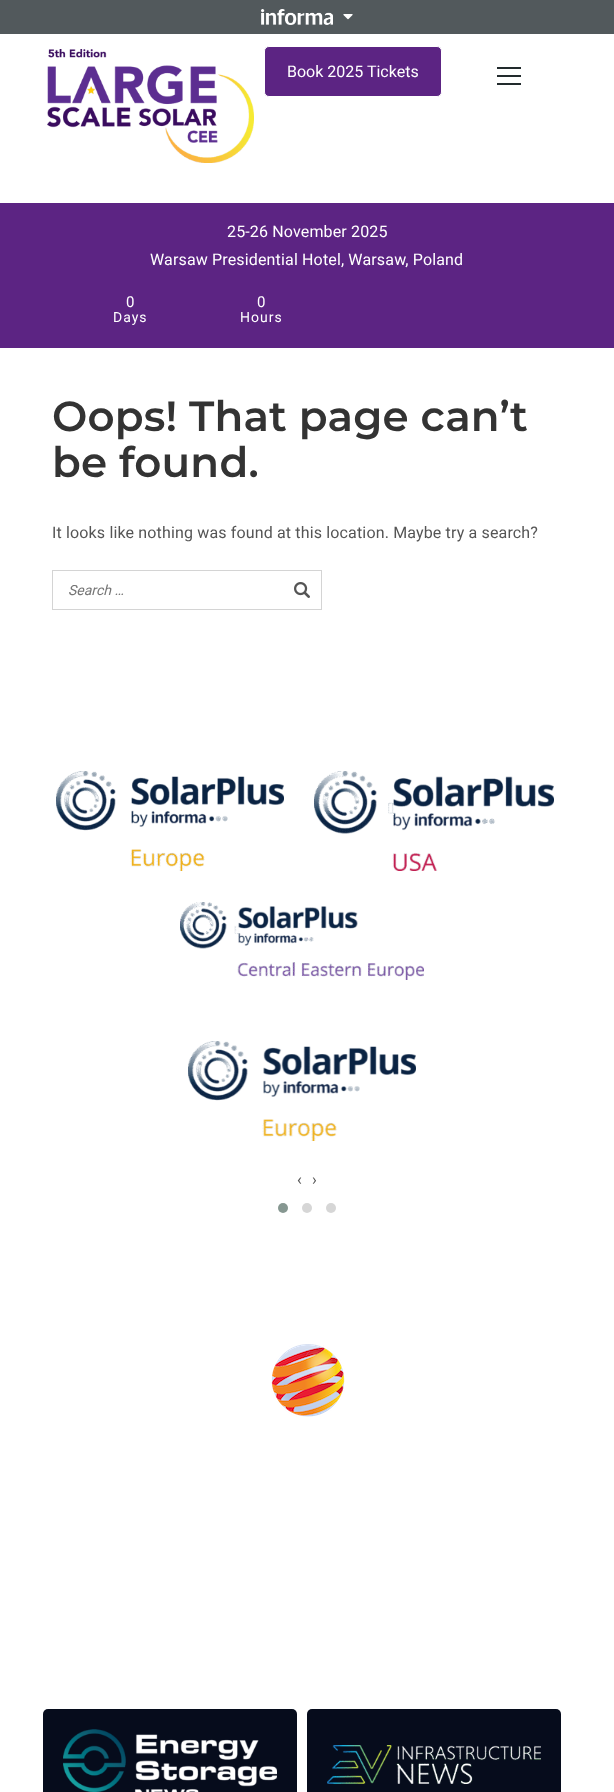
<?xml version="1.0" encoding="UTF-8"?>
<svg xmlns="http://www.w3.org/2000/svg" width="614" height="1792">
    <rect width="100%" height="100%" fill="#FFFFFF"/>
    <rect x="0" y="0" width="614" height="34" fill="#52595C"/>
    <image x="261" y="9" width="72" height="16" href="img_01.png"/>
    <image x="343" y="14" width="10" height="6" href="img_02.png"/>
    <image x="47" y="49" width="207" height="114" href="img_03.png"/>
    <rect x="264.5" y="46.5" width="177" height="50" rx="4.5" fill="#5C2483" stroke="#FFFFFF"/>
    <text x="287" y="77" font-family="Roboto" font-size="16" fill="#FFFFFF">Book 2025 Tickets</text>
    <rect x="497" y="67" width="24" height="2" fill="#222B2D"/>
    <rect x="497" y="75" width="24" height="2" fill="#222B2D"/>
    <rect x="497" y="83" width="24" height="2" fill="#222B2D"/>
    <rect x="0" y="203" width="614" height="145" fill="#5C2483"/>
    <text x="227" y="237" font-family="Roboto" font-size="16" letter-spacing="0.15" fill="#FFFFFF">25-26 November 2025</text>
    <text x="150" y="265" font-family="Roboto" font-size="16" letter-spacing="0.15" fill="#FFFFFF">Warsaw Presidential Hotel, Warsaw, Poland</text>
    <text x="126" y="307" font-family="Roboto" font-size="15" letter-spacing="0.15" fill="#FFFFFF">0</text>
    <text x="113" y="322" font-family="Roboto" font-size="14" letter-spacing="1" fill="#FFFFFF">Days</text>
    <text x="257" y="307" font-family="Roboto" font-size="15" letter-spacing="0.15" fill="#FFFFFF">0</text>
    <text x="240" y="322" font-family="Roboto" font-size="14" letter-spacing="1" fill="#FFFFFF">Hours</text>
    <text font-family="Montserrat" font-size="42" font-weight="600" letter-spacing="0.15" fill="#333333">
        <tspan x="52" y="431">Oops! That page can’t</tspan>
        <tspan x="52" y="477">be found.</tspan>
    </text>
    <text x="52" y="538" font-family="Roboto" font-size="16" letter-spacing="0.15" fill="#555555">It looks like nothing was found at this location. Maybe try a search?</text>
    <rect x="52.5" y="570.5" width="269" height="39" fill="none" stroke="#D4D4D4"/>
    <text x="68" y="595" font-family="Roboto" font-size="14" font-style="italic" fill="#757575">Search …</text>
    <image x="294" y="582" width="16" height="16" href="img_04.png"/>
    <image x="56" y="771" width="228" height="100" href="img_05.png"/>
    <image x="314" y="771" width="240" height="100" href="img_06.png"/>
    <image x="180" y="902" width="244" height="78" href="img_07.png"/>
    <image x="188" y="1041" width="228" height="100" href="img_08.png"/>
    <text x="297" y="1185" font-family="Roboto" font-size="16" fill="#555555">‹</text>
    <text x="312" y="1185" font-family="Roboto" font-size="16" fill="#555555">›</text>
    <circle cx="283" cy="1208" r="5" fill="#869791"/>
    <circle cx="307" cy="1208" r="5" fill="#D6D6D6"/>
    <circle cx="331" cy="1208" r="5" fill="#D6D6D6"/>
    <image x="271" y="1344" width="74" height="73" href="img_09.png"/>
    <rect x="43" y="1709" width="254" height="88" rx="5" fill="#060C1C"/>
    <image x="63" y="1729" width="214" height="63" href="img_10.png"/>
    <rect x="307" y="1709" width="254" height="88" rx="5" fill="#060C1C"/>
    <image x="327" y="1745" width="214" height="39" href="img_11.png"/>
</svg>
